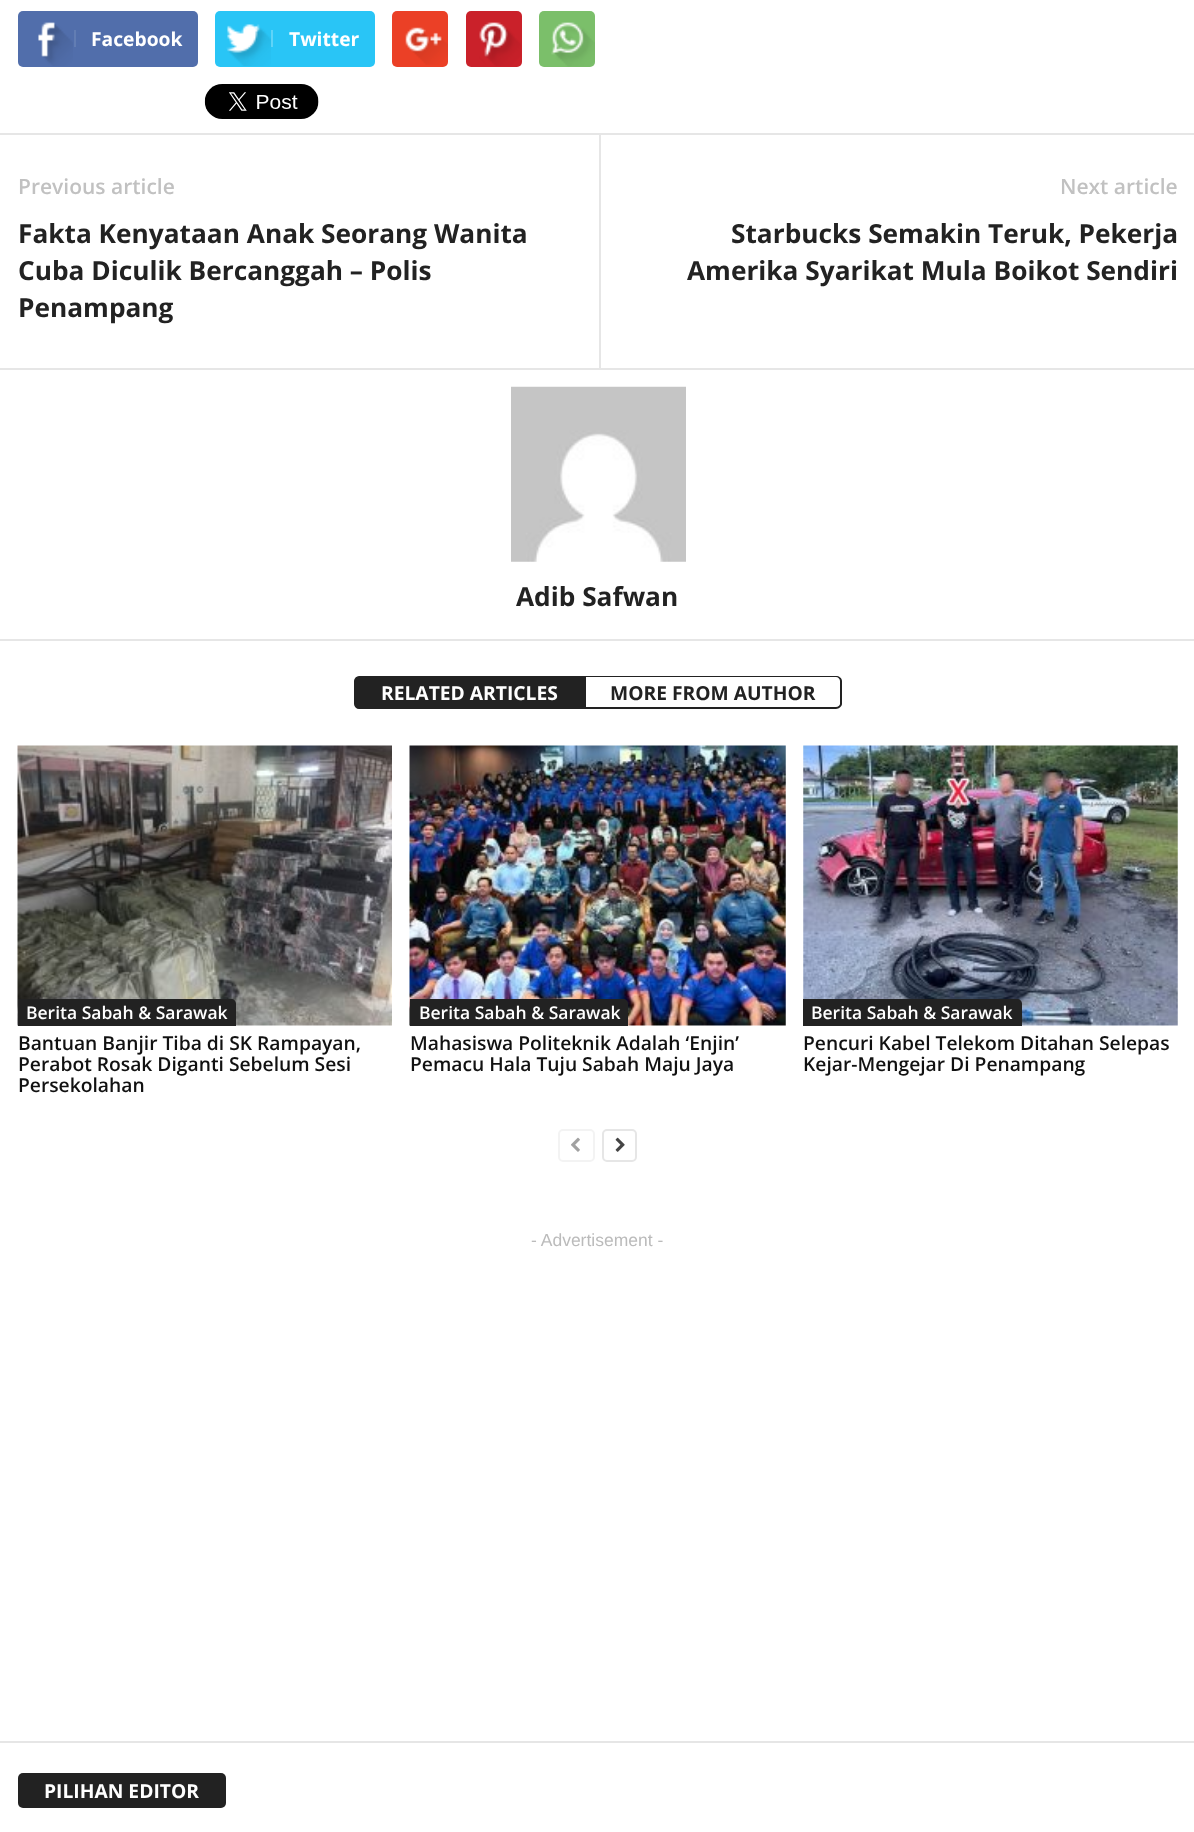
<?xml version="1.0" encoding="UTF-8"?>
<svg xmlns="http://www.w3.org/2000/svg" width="1194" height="1832">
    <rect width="100%" height="100%" fill="#FFFFFF"/>
    <rect x="18" y="11" width="180" height="56" rx="5" fill="#516EAB"/>
    <image x="38" y="22" width="35" height="44" href="img_01.png"/>
    <rect x="74" y="30" width="2" height="17" fill="#627DB3"/>
    <text x="91" y="46" font-family="Open Sans" font-size="19.25" font-weight="700" fill="#FFFFFF">Facebook</text>
    <rect x="215" y="11" width="160" height="56" rx="5" fill="#29C5F6"/>
    <image x="226" y="24" width="45" height="42" href="img_02.png"/>
    <rect x="271" y="30" width="2" height="17" fill="#5FD4F8"/>
    <text x="289" y="46" font-family="Open Sans" font-size="19.25" font-weight="700" fill="#FFFFFF">Twitter</text>
    <rect x="392" y="11" width="56" height="56" rx="5" fill="#EB4026"/>
    <image x="405" y="27" width="43" height="38" href="img_03.png"/>
    <rect x="466" y="11" width="56" height="56" rx="5" fill="#CA212A"/>
    <image x="479" y="22" width="42" height="44" href="img_04.png"/>
    <rect x="539" y="11" width="56" height="56" rx="5" fill="#7BBF6A"/>
    <image x="551" y="22" width="44" height="45" href="img_05.png"/>
    <image x="204" y="84" width="115" height="35" href="img_06.png"/>
    <rect x="0" y="133" width="1194" height="2" fill="#E6E6E6"/>
    <text x="18" y="194" font-family="Open Sans" font-size="21" font-weight="600" fill="#C1C1C1">Previous article</text>
    <text font-family="Open Sans" font-size="26.25" font-weight="700" fill="#222222">
        <tspan x="18" y="243">Fakta Kenyataan Anak Seorang Wanita</tspan>
        <tspan x="18" y="280">Cuba Diculik Bercanggah – Polis</tspan>
        <tspan x="18" y="317">Penampang</tspan>
    </text>
    <rect x="599" y="135" width="2" height="233" fill="#E6E6E6"/>
    <text x="1060" y="194" font-family="Open Sans" font-size="21" font-weight="600" fill="#C1C1C1">Next article</text>
    <text x="731" y="243" font-family="Open Sans" font-size="26.25" font-weight="700" fill="#222222">Starbucks Semakin Teruk, Pekerja</text>
    <text x="687" y="280" font-family="Open Sans" font-size="26.25" font-weight="700" fill="#222222">Amerika Syarikat Mula Boikot Sendiri</text>
    <rect x="0" y="368" width="1194" height="2" fill="#E6E6E6"/>
    <image x="511" y="386" width="175" height="176" href="img_07.png"/>
    <text x="516" y="606" font-family="Open Sans" font-size="26.25" font-weight="700" fill="#222222">Adib Safwan</text>
    <rect x="0" y="639" width="1194" height="2" fill="#E6E6E6"/>
    <path d="M 359 677 H 585 V 708 H 359 C 357 708 355 706 355 704 V 681 C 355 679 357 677 359 677 Z" fill="#222222" stroke="#222222" stroke-width="2"/>
    <text x="381" y="700" font-family="Open Sans" font-size="19.25" font-weight="700" fill="#FFFFFF">RELATED ARTICLES</text>
    <path d="M 586 676 H 836 C 839 676 842 678 842 681 V 704 C 842 706 839 709 836 709 H 586 Z M 586 677 H 836 C 838 677 840 679 840 681 V 704 C 840 705 838 707 836 707 H 586 Z" fill="#222222" fill-rule="evenodd"/>
    <text x="610" y="700" font-family="Open Sans" font-size="19.25" font-weight="700" fill="#222222">MORE FROM AUTHOR</text>
    <image x="17" y="745" width="375" height="281" href="img_08.png"/>
    <path d="M 18 999 H 231 C 234 999 236 1001 236 1004 V 1026 H 18 Z" fill="#222222"/>
    <text x="26" y="1019" font-family="Open Sans" font-size="17.5" font-weight="600" fill="#FFFFFF">Berita Sabah &amp; Sarawak</text>
    <text font-family="Open Sans" font-size="19.25" font-weight="600" fill="#111111">
        <tspan x="18" y="1050">Bantuan Banjir Tiba di SK Rampayan,</tspan>
        <tspan x="18" y="1071">Perabot Rosak Diganti Sebelum Sesi</tspan>
        <tspan x="18" y="1092">Persekolahan</tspan>
    </text>
    <image x="409" y="745" width="377" height="281" href="img_09.png"/>
    <path d="M 410 999 H 623 C 626 999 628 1001 628 1004 V 1026 H 410 Z" fill="#222222"/>
    <text x="419" y="1019" font-family="Open Sans" font-size="17.5" font-weight="600" fill="#FFFFFF">Berita Sabah &amp; Sarawak</text>
    <text font-family="Open Sans" font-size="19.25" font-weight="600" fill="#111111">
        <tspan x="410" y="1050">Mahasiswa Politeknik Adalah ‘Enjin’</tspan>
        <tspan x="410" y="1071">Pemacu Hala Tuju Sabah Maju Jaya</tspan>
    </text>
    <image x="803" y="745" width="375" height="281" href="img_10.png"/>
    <path d="M 803 999 H 1017 C 1020 999 1022 1001 1022 1004 V 1026 H 803 Z" fill="#222222"/>
    <text x="811" y="1019" font-family="Open Sans" font-size="17.5" font-weight="600" fill="#FFFFFF">Berita Sabah &amp; Sarawak</text>
    <text font-family="Open Sans" font-size="19.25" font-weight="600" fill="#111111">
        <tspan x="803" y="1050">Pencuri Kabel Telekom Ditahan Selepas</tspan>
        <tspan x="803" y="1071">Kejar-Mengejar Di Penampang</tspan>
    </text>
    <rect x="559" y="1130" width="35" height="31" rx="4" fill="none" stroke="#F3F3F3" stroke-width="2"/>
    <image x="571" y="1137" width="9" height="15" href="img_11.png"/>
    <rect x="603" y="1130" width="33" height="31" rx="4" fill="none" stroke="#E6E6E6" stroke-width="2"/>
    <image x="615" y="1137" width="10" height="15" href="img_12.png"/>
    <text x="531" y="1246" font-family="Liberation Sans" font-size="17.5" fill="#BBBBBB">- Advertisement -</text>
    <rect x="0" y="1741" width="1194" height="2" fill="#E6E6E6"/>
    <rect x="18" y="1773" width="208" height="35" rx="5" fill="#222222"/>
    <text x="44" y="1798" font-family="Open Sans" font-size="19.25" font-weight="700" fill="#FFFFFF">PILIHAN EDITOR</text>
</svg>
